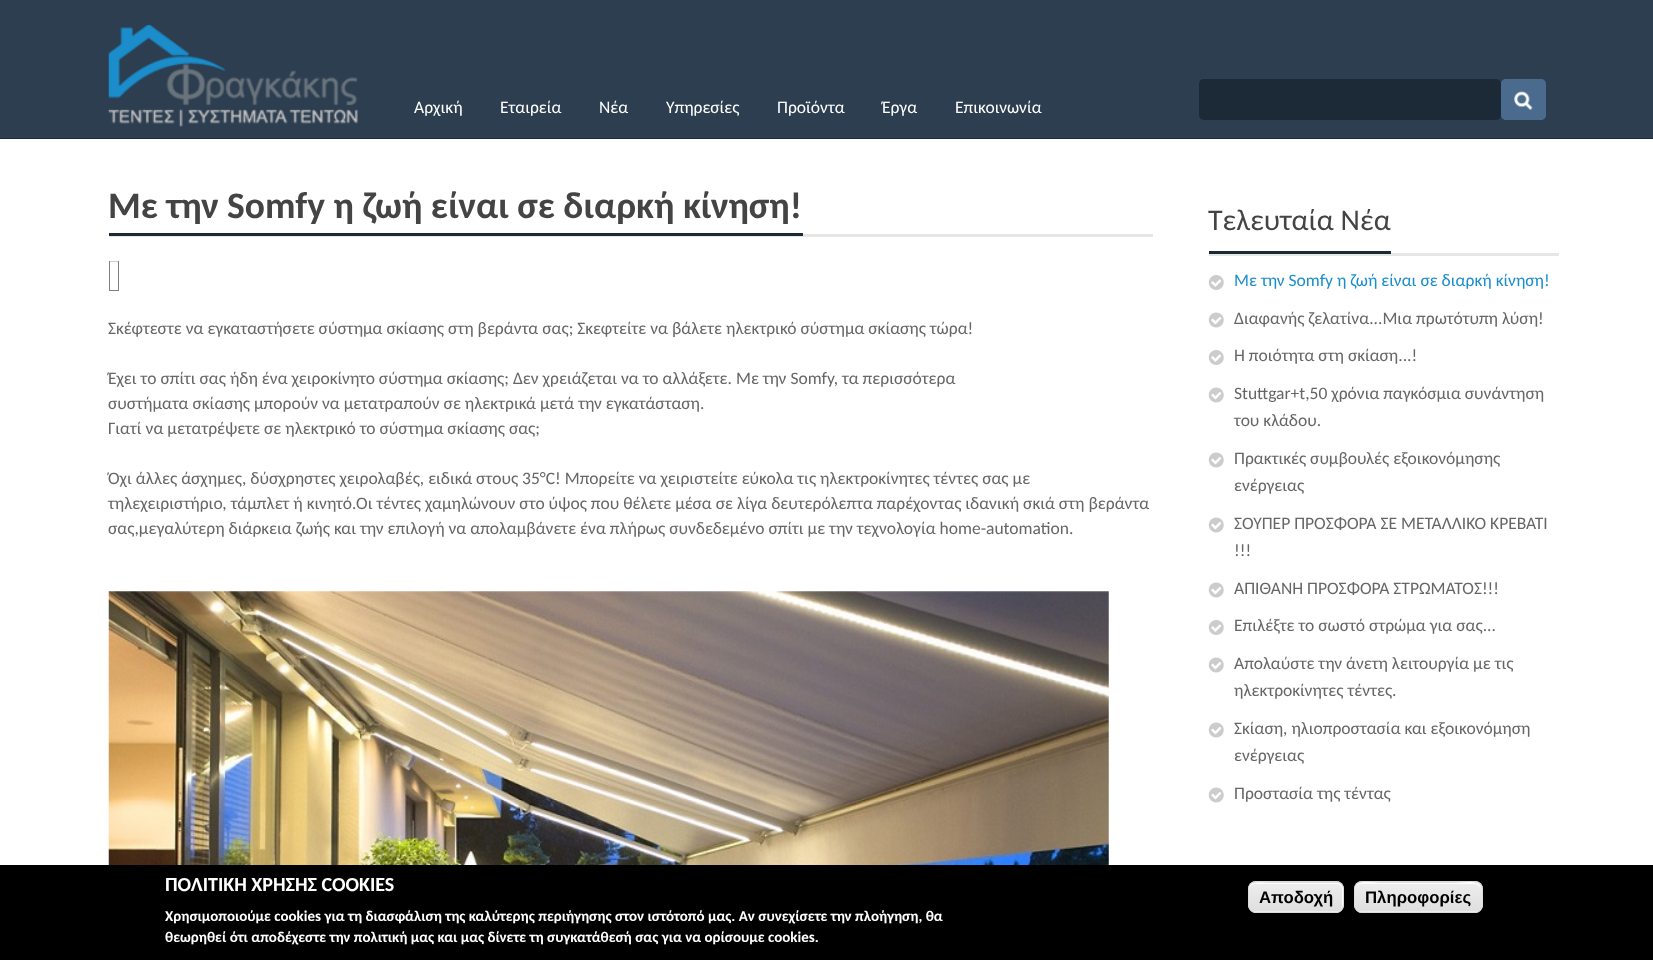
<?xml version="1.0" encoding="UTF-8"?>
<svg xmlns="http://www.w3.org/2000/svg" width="1653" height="960">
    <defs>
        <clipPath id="clip1"><rect x="1248" y="881" width="96" height="32" rx="8"/></clipPath>
        <linearGradient id="g1" gradientUnits="userSpaceOnUse" x1="1249" y1="854" x2="1249" y2="883"><stop offset="0.05" stop-color="#EDEDED"/><stop offset="1" stop-color="#DFDFDF"/></linearGradient>
        <linearGradient id="g2" gradientUnits="userSpaceOnUse" x1="1249" y1="883" x2="1249" y2="911"><stop offset="0.05" stop-color="#EDEDED"/><stop offset="1" stop-color="#DFDFDF"/></linearGradient>
        <linearGradient id="g3" gradientUnits="userSpaceOnUse" x1="1249" y1="911" x2="1249" y2="940"><stop offset="0.05" stop-color="#EDEDED"/><stop offset="1" stop-color="#DFDFDF"/></linearGradient>
        <clipPath id="clip2"><rect x="1354" y="881" width="129" height="32" rx="8"/></clipPath>
        <linearGradient id="g4" gradientUnits="userSpaceOnUse" x1="1355" y1="854" x2="1355" y2="883"><stop offset="0.05" stop-color="#EDEDED"/><stop offset="1" stop-color="#DFDFDF"/></linearGradient>
        <linearGradient id="g5" gradientUnits="userSpaceOnUse" x1="1355" y1="883" x2="1355" y2="911"><stop offset="0.05" stop-color="#EDEDED"/><stop offset="1" stop-color="#DFDFDF"/></linearGradient>
        <linearGradient id="g6" gradientUnits="userSpaceOnUse" x1="1355" y1="911" x2="1355" y2="940"><stop offset="0.05" stop-color="#EDEDED"/><stop offset="1" stop-color="#DFDFDF"/></linearGradient>
    </defs>
    <rect width="100%" height="100%" fill="#FFFFFF"/>
    <rect x="0" y="0" width="1653" height="138" fill="#2C3E50"/>
    <rect x="0" y="138" width="1653" height="1" fill="#1C2936"/>
    <image x="108" y="24" width="250" height="103" href="img_01.png"/>
    <text x="414" y="113" font-family="Carlito" font-size="17.5" fill="#FFFFFF">Αρχική</text>
    <text x="500" y="113" font-family="Carlito" font-size="17.5" fill="#FFFFFF">Εταιρεία</text>
    <text x="599" y="113" font-family="Carlito" font-size="17.5" fill="#FFFFFF">Νέα</text>
    <text x="666" y="113" font-family="Carlito" font-size="17.5" fill="#FFFFFF">Υπηρεσίες</text>
    <text x="777" y="113" font-family="Carlito" font-size="17.5" fill="#FFFFFF">Προϊόντα</text>
    <text x="882" y="113" font-family="Carlito" font-size="17.5" fill="#FFFFFF">Έργα</text>
    <text x="955" y="113" font-family="Carlito" font-size="17.5" fill="#FFFFFF">Επικοινωνία</text>
    <rect x="1199" y="79" width="302" height="41" rx="5" fill="#1C2936"/>
    <rect x="1501" y="79" width="45" height="41" rx="5" fill="#4A6B8E"/>
    <image x="1514" y="91" width="19" height="20" href="img_02.png"/>
    <rect x="1501.5" y="79.5" width="44" height="40" rx="4.5" fill="none" stroke="#4A6B8E"/>
    <rect x="109" y="234" width="1044" height="3" fill="#E6E6E6"/>
    <text x="108" y="218" font-family="Carlito" font-size="37.5" font-weight="700" fill="#444444">Με την Somfy η ζωή είναι σε διαρκή κίνηση!</text>
    <rect x="109" y="233" width="694" height="3" fill="#1C2936"/>
    <rect x="109" y="290" width="10" height="1" fill="#808080"/>
    <rect x="109" y="261" width="10" height="1" fill="#CCCCCC"/>
    <rect x="118" y="261" width="1" height="30" fill="#808080"/>
    <rect x="109" y="261" width="1" height="30" fill="#808080"/>
    <text x="108" y="334" font-family="Carlito" font-size="17.5" fill="#666666">Σκέφτεστε να εγκαταστήσετε σύστημα σκίασης στη βεράντα σας; Σκεφτείτε να βάλετε ηλεκτρικό σύστημα σκίασης τώρα!</text>
    <text font-family="Carlito" font-size="17.5" fill="#666666">
        <tspan x="108" y="384">Έχει το σπίτι σας ήδη ένα χειροκίνητο σύστημα σκίασης; Δεν χρειάζεται να το αλλάξετε. Με την Somfy, τα περισσότερα</tspan>
        <tspan x="108" y="409">συστήματα σκίασης μπορούν να μετατραπούν σε ηλεκτρικά μετά την εγκατάσταση.</tspan>
        <tspan x="108" y="434">Γιατί να μετατρέψετε σε ηλεκτρικό το σύστημα σκίασης σας;</tspan>
    </text>
    <text font-family="Carlito" font-size="17.5" fill="#666666">
        <tspan x="108" y="484">Όχι άλλες άσχημες, δύσχρηστες χειρολαβές, ειδικά στους 35°C! Μπορείτε να χειριστείτε εύκολα τις ηλεκτροκίνητες τέντες σας με</tspan>
        <tspan x="108" y="509">τηλεχειριστήριο, τάμπλετ ή κινητό.Οι τέντες χαμηλώνουν στο ύψος που θέλετε μέσα σε λίγα δευτερόλεπτα παρέχοντας ιδανική σκιά στη βεράντα</tspan>
        <tspan x="108" y="534">σας,μεγαλύτερη διάρκεια ζωής και την επιλογή να απολαμβάνετε ένα πλήρως συνδεδεμένο σπίτι με την τεχνολογία home-automation.</tspan>
    </text>
    <image x="108" y="591" width="1001" height="274" href="img_03.png"/>
    <rect x="1209" y="253" width="350" height="3" fill="#E6E6E6"/>
    <text x="1208" y="230" font-family="Carlito" font-size="30" fill="#444444">Τελευταία Νέα</text>
    <rect x="1209" y="251" width="182" height="3" fill="#1C2936"/>
    <image x="1208" y="275" width="16" height="15" href="img_04.png"/>
    <text x="1234" y="286" font-family="Carlito" font-size="17.5" fill="#1B8DCB">Με την Somfy η ζωή είναι σε διαρκή κίνηση!</text>
    <image x="1208" y="312" width="16" height="16" href="img_05.png"/>
    <text x="1234" y="324" font-family="Carlito" font-size="17.5" fill="#666666">Διαφανής ζελατίνα...Μια πρωτότυπη λύση!</text>
    <image x="1208" y="350" width="16" height="15" href="img_04.png"/>
    <text x="1234" y="361" font-family="Carlito" font-size="17.5" fill="#666666">Η ποιότητα στη σκίαση...!</text>
    <image x="1208" y="387" width="16" height="16" href="img_05.png"/>
    <text font-family="Carlito" font-size="17.5" fill="#666666">
        <tspan x="1234" y="399">Stuttgar+t,50 χρόνια παγκόσμια συνάντηση</tspan>
        <tspan x="1234" y="426">του κλάδου.</tspan>
    </text>
    <image x="1208" y="452" width="16" height="16" href="img_05.png"/>
    <text font-family="Carlito" font-size="17.5" fill="#666666">
        <tspan x="1234" y="464">Πρακτικές συμβουλές εξοικονόμησης</tspan>
        <tspan x="1234" y="491">ενέργειας</tspan>
    </text>
    <image x="1208" y="517" width="16" height="16" href="img_05.png"/>
    <text font-family="Carlito" font-size="17.5" fill="#666666">
        <tspan x="1234" y="529">ΣΟΥΠΕΡ ΠΡΟΣΦΟΡΑ ΣΕ ΜΕΤΑΛΛΙΚΟ ΚΡΕΒΑΤΙ</tspan>
        <tspan x="1234" y="556">!!!</tspan>
    </text>
    <image x="1208" y="582" width="16" height="16" href="img_05.png"/>
    <text x="1234" y="594" font-family="Carlito" font-size="17.5" fill="#666666">ΑΠΙΘΑΝΗ ΠΡΟΣΦΟΡΑ ΣΤΡΩΜΑΤΟΣ!!!</text>
    <image x="1208" y="620" width="16" height="15" href="img_04.png"/>
    <text x="1234" y="631" font-family="Carlito" font-size="17.5" fill="#666666">Επιλέξτε το σωστό στρώμα για σας...</text>
    <image x="1208" y="657" width="16" height="16" href="img_05.png"/>
    <text font-family="Carlito" font-size="17.5" fill="#666666">
        <tspan x="1234" y="669">Απολαύστε την άνετη λειτουργία με τις</tspan>
        <tspan x="1234" y="696">ηλεκτροκίνητες τέντες.</tspan>
    </text>
    <image x="1208" y="722" width="16" height="16" href="img_05.png"/>
    <text font-family="Carlito" font-size="17.5" fill="#666666">
        <tspan x="1234" y="734">Σκίαση, ηλιοπροστασία και εξοικονόμηση</tspan>
        <tspan x="1234" y="761">ενέργειας</tspan>
    </text>
    <image x="1208" y="787" width="16" height="16" href="img_05.png"/>
    <text x="1234" y="799" font-family="Carlito" font-size="17.5" fill="#666666">Προστασία της τέντας</text>
    <rect x="0" y="865" width="1653" height="95" fill="#000000"/>
    <text x="165" y="891" font-family="Carlito" font-size="20" font-weight="700" fill="#FFFFFF">ΠΟΛΙΤΙΚΗ ΧΡΗΣΗΣ COOKIES</text>
    <text font-family="Carlito" font-size="15" font-weight="700" fill="#FFFFFF">
        <tspan x="165" y="921">Χρησιμοποιούμε cookies για τη διασφάλιση της καλύτερης περιήγησης στον ιστότοπό μας. Αν συνεχίσετε την πλοήγηση, θα</tspan>
        <tspan x="165" y="942">θεωρηθεί ότι αποδέχεστε την πολιτική μας και μας δίνετε τη συγκατάθεσή σας για να ορίσουμε cookies.</tspan>
    </text>
    <g clip-path="url(#clip1)">
        <rect x="1248" y="881" width="96" height="2" fill="url(#g1)"/>
        <rect x="1248" y="883" width="96" height="28" fill="url(#g2)"/>
        <rect x="1248" y="911" width="96" height="2" fill="url(#g3)"/>
    </g>
    <path d="M 1255 884 H 1336 C 1340 884 1342 887 1342 890 V 906 L 1341 909 C 1344 906 1343 901 1343 897 C 1343 892 1344 883 1337 883 H 1269 C 1262 883 1249 880 1249 890 C 1249 887 1252 884 1255 884 Z" fill="#FFFFFF"/>
    <rect x="1248.5" y="881.5" width="95" height="31" rx="7.5" fill="none" stroke="#DCDCDC"/>
    <text x="1259" y="903" font-family="Liberation Sans" font-size="16.75" font-weight="700" fill="#000000">Αποδοχή</text>
    <g clip-path="url(#clip2)">
        <rect x="1354" y="881" width="129" height="2" fill="url(#g4)"/>
        <rect x="1354" y="883" width="129" height="28" fill="url(#g5)"/>
        <rect x="1354" y="911" width="129" height="2" fill="url(#g6)"/>
    </g>
    <path d="M 1361 884 H 1475 C 1478 884 1481 887 1481 890 C 1481 878 1462 883 1456 883 H 1380 C 1374 883 1355 878 1355 890 C 1355 887 1358 884 1361 884 Z" fill="#FFFFFF"/>
    <rect x="1354.5" y="881.5" width="128" height="31" rx="7.5" fill="none" stroke="#DCDCDC"/>
    <text x="1365" y="903" font-family="Liberation Sans" font-size="16.75" font-weight="700" fill="#000000">Πληροφορίες</text>
</svg>
